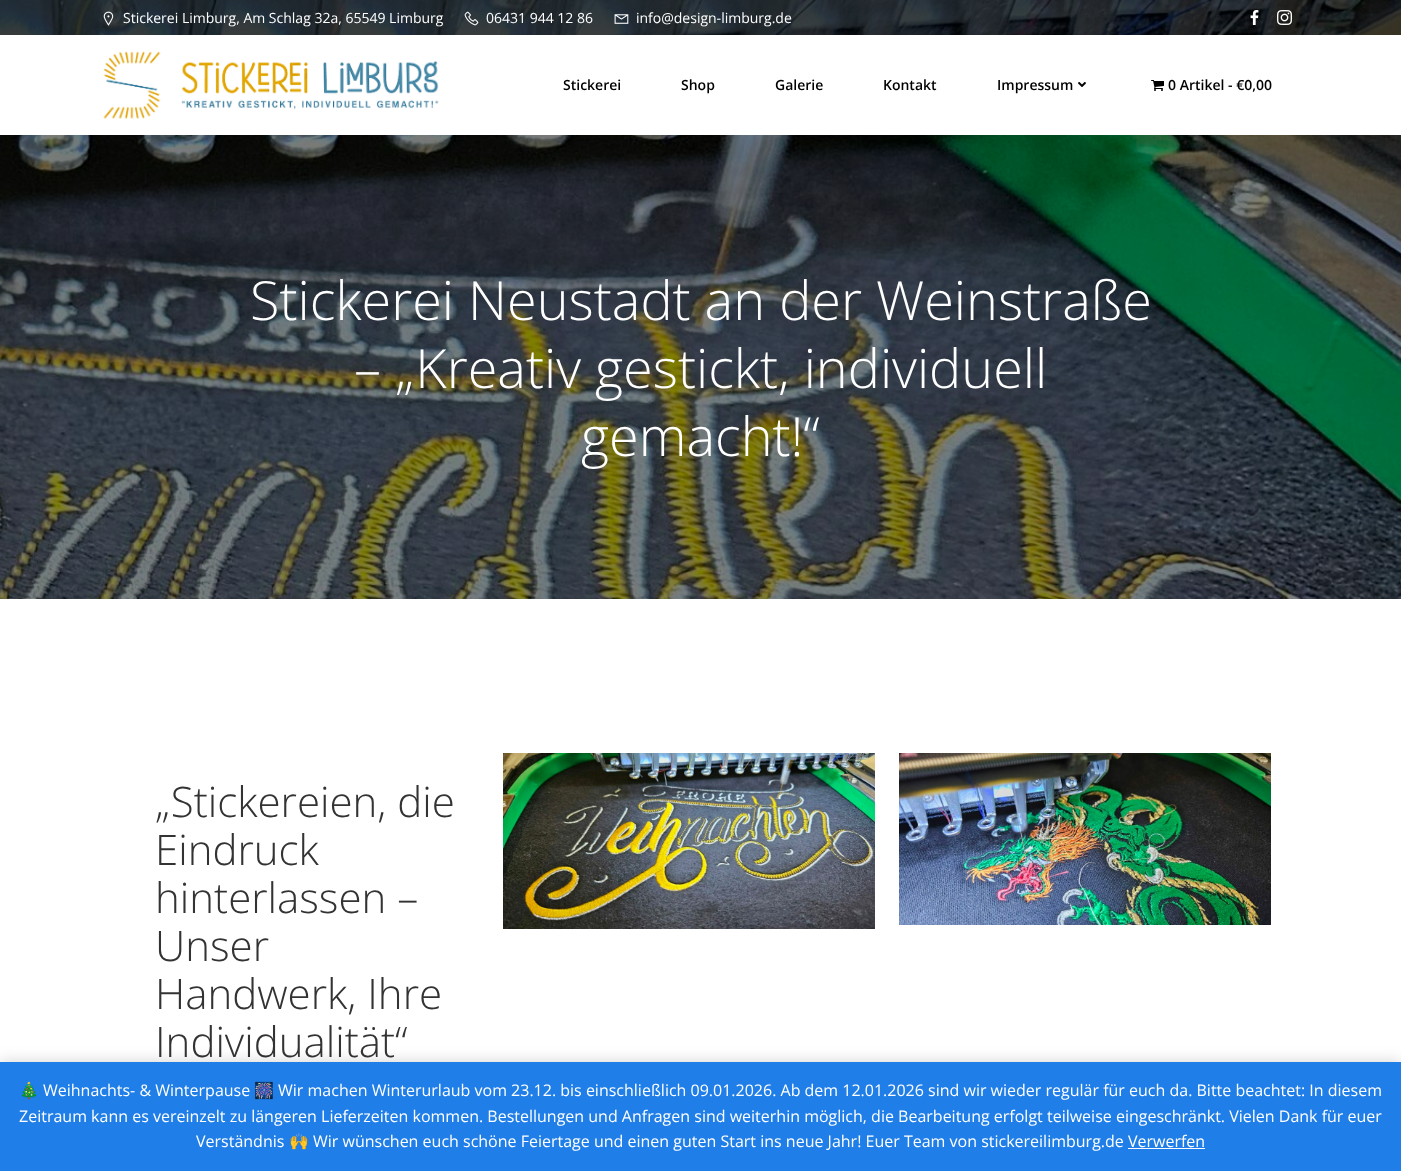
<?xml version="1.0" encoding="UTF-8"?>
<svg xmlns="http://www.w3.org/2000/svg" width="1401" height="1171">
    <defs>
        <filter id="blur1" x="-50%" y="-200%" width="200%" height="500%"><feGaussianBlur stdDeviation="8"/></filter>
    </defs>
    <rect width="100%" height="100%" fill="#FFFFFF"/>
    <image x="0" y="0" width="1401" height="599" href="img_09.png"/>
    <rect x="0" y="0" width="1401" height="35" fill="#000000" fill-opacity="0.5"/>
    <image x="103" y="11" width="11" height="15" href="img_01.png"/>
    <text x="123" y="23" font-family="Open Sans" font-size="14" fill="#FFFFFF">Stickerei Limburg, Am Schlag 32a, 65549 Limburg</text>
    <image x="464" y="11" width="15" height="15" href="img_02.png"/>
    <text x="486" y="23" font-family="Open Sans" font-size="14" fill="#FFFFFF">06431 944 12 86</text>
    <image x="614" y="14" width="15" height="10" href="img_03.png"/>
    <text x="636" y="23" font-family="Open Sans" font-size="14" fill="#FFFFFF">info@design-limburg.de</text>
    <image x="1250" y="10" width="9" height="15" href="img_04.png"/>
    <image x="1277" y="10" width="15" height="15" href="img_05.png"/>
    <rect x="0" y="35" width="1401" height="100" fill="#FFFFFF"/>
    <image x="103" y="51" width="336" height="68" href="img_06.png"/>
    <text x="563" y="90" font-family="Open Sans" font-size="14" font-weight="600" fill="#000000">Stickerei</text>
    <text x="681" y="90" font-family="Open Sans" font-size="14" font-weight="600" fill="#000000">Shop</text>
    <text x="775" y="90" font-family="Open Sans" font-size="14" font-weight="600" fill="#000000">Galerie</text>
    <text x="883" y="90" font-family="Open Sans" font-size="14" font-weight="600" fill="#000000">Kontakt</text>
    <text x="997" y="90" font-family="Open Sans" font-size="14" font-weight="600" fill="#000000">Impressum</text>
    <image x="1078" y="82" width="8" height="5" href="img_07.png"/>
    <image x="1151" y="80" width="13" height="11" href="img_08.png"/>
    <text x="1168" y="90" font-family="Open Sans" font-size="14" font-weight="600" fill="#000000">0 Artikel - €0,00</text>
    <text x="250" y="320" font-family="Open Sans" font-size="54" font-weight="300" fill="#FFFFFF">Stickerei Neustadt an der Weinstraße</text>
    <text x="354" y="388" font-family="Open Sans" font-size="54" font-weight="300" fill="#FFFFFF">– „Kreativ gestickt, individuell</text>
    <text x="581" y="456" font-family="Open Sans" font-size="54" font-weight="300" fill="#FFFFFF">gemacht!“</text>
    <text font-family="Open Sans" font-size="42" font-weight="300" fill="#333333">
        <tspan x="155" y="817">„Stickereien, die</tspan>
        <tspan x="155" y="865">Eindruck</tspan>
        <tspan x="155" y="913">hinterlassen –</tspan>
        <tspan x="155" y="961">Unser</tspan>
        <tspan x="155" y="1009">Handwerk, Ihre</tspan>
        <tspan x="155" y="1057">Individualität“</tspan>
    </text>
    <image x="503" y="753" width="372" height="176" href="img_10.png"/>
    <image x="899" y="753" width="372" height="172" href="img_11.png"/>
    <rect x="0" y="1063" width="1401" height="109" fill="#000000" fill-opacity="0.2" filter="url(#blur1)"/>
    <rect x="0" y="1062" width="1401" height="109" fill="#1F7EE7"/>
    <text x="19" y="1096" font-family="Noto Color Emoji" font-size="16" fill="#FFFFFF">🎄</text>
    <text x="43" y="1096" font-family="Open Sans" font-size="16" fill="#FFFFFF">Weihnachts- &amp; Winterpause</text>
    <text x="254" y="1096" font-family="Noto Color Emoji" font-size="16" fill="#FFFFFF">🎆</text>
    <text x="278" y="1096" font-family="Open Sans" font-size="16" fill="#FFFFFF">Wir machen Winterurlaub vom 23.12. bis einschließlich 09.01.2026. Ab dem 12.01.2026 sind wir wieder regulär für euch da. Bitte beachtet: In diesem</text>
    <text x="19" y="1122" font-family="Open Sans" font-size="16" fill="#FFFFFF">Zeitraum kann es vereinzelt zu längeren Lieferzeiten kommen. Bestellungen und Anfragen sind weiterhin möglich, die Bearbeitung erfolgt teilweise eingeschränkt. Vielen Dank für euer</text>
    <text x="196" y="1147" font-family="Open Sans" font-size="16" fill="#FFFFFF">Verständnis</text>
    <text x="289" y="1147" font-family="Noto Color Emoji" font-size="16" fill="#FFFFFF">🙌</text>
    <text x="313" y="1147" font-family="Open Sans" font-size="16" fill="#FFFFFF">Wir wünschen euch schöne Feiertage und einen guten Start ins neue Jahr! Euer Team von stickereilimburg.de Verwerfen</text>
    <rect x="1128" y="1148" width="77" height="1" fill="#FCFBFE"/>
</svg>
